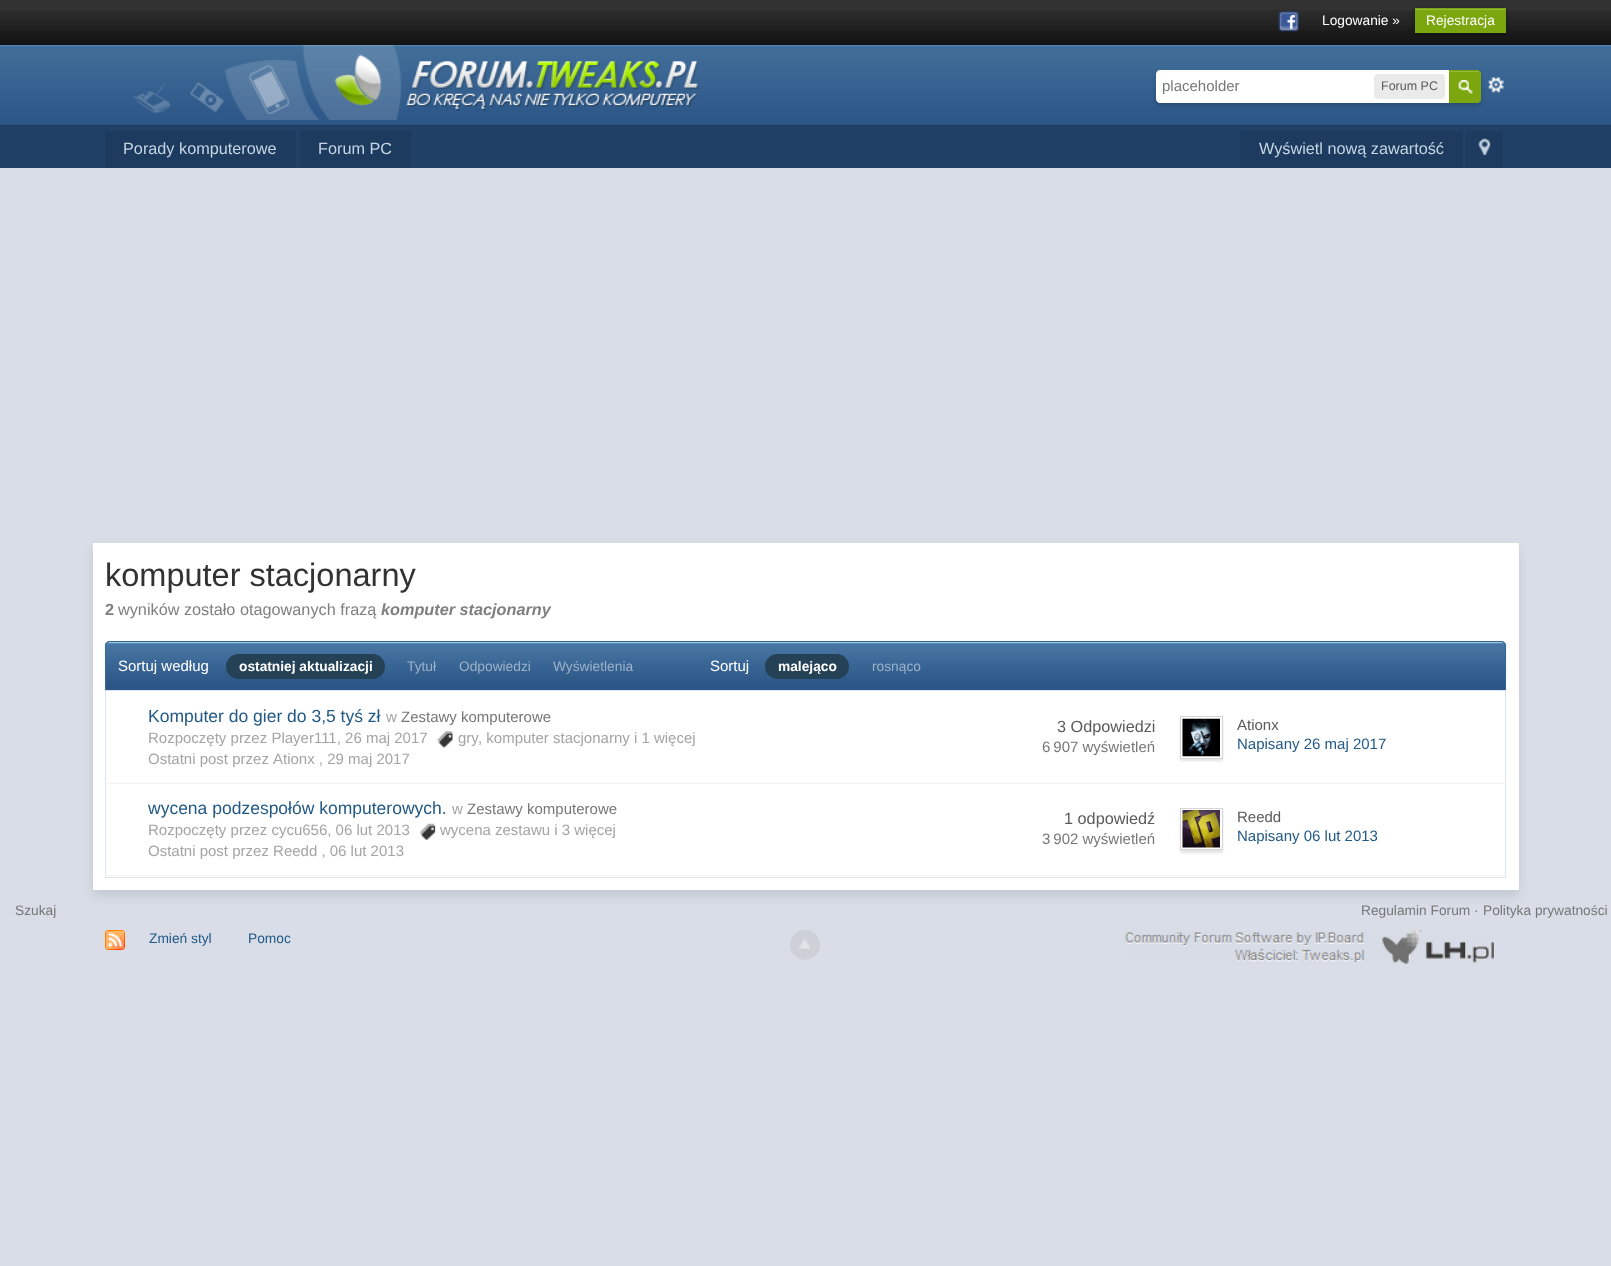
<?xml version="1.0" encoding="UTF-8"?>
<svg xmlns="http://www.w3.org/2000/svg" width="1611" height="1266">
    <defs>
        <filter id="blur1" x="-50%" y="-200%" width="200%" height="500%"><feGaussianBlur stdDeviation="2.5"/></filter>
        <filter id="blur2" x="-50%" y="-200%" width="200%" height="500%"><feGaussianBlur stdDeviation="5.5"/></filter>
        <filter id="blur3" x="-50%" y="-200%" width="200%" height="500%"><feGaussianBlur stdDeviation="1"/></filter>
    </defs>
    <rect width="100%" height="100%" fill="#D8DDE8"/>
    <rect x="0" y="0" width="1611" height="10" fill="#323232"/>
    <image x="0" y="10" width="1611" height="35" href="img_01.png"/>
    <image x="1278" y="11" width="21" height="21" href="img_02.png"/>
    <text x="1322" y="25" font-family="Liberation Sans" font-size="13.75" fill="#FFFFFF">Logowanie »</text>
    <rect x="1415" y="9" width="91" height="25" fill="#000000" fill-opacity="0.4" filter="url(#blur1)"/>
    <rect x="1415" y="8" width="91" height="25" fill="#7BA60D"/>
    <rect x="1416" y="9" width="89" height="1" fill="#95B83D"/>
    <text x="1426" y="25" font-family="Liberation Sans" font-size="13.75" fill="#FFFFFF">Rejestracja</text>
    <image x="0" y="45" width="1611" height="80" href="img_03.png"/>
    <rect x="0" y="125" width="1611" height="1" fill="#1B3759"/>
    <image x="133" y="45" width="566" height="75" href="img_04.png"/>
    <image x="1488" y="77" width="16" height="16" href="img_06.png"/>
    <rect x="1156" y="73" width="325" height="32" rx="5" fill="#000000" fill-opacity="0.2" filter="url(#blur1)"/>
    <path d="M 1160 70 H 1476 C 1479 70 1481 72 1481 75 V 98 C 1481 101 1479 103 1476 103 H 1160 C 1158 103 1156 101 1156 99 V 74 C 1156 72 1158 70 1160 70 Z" fill="#FFFFFF"/>
    <text x="1162" y="91" font-family="Liberation Sans" font-size="15" fill="#777777">placeholder</text>
    <rect x="1374" y="74" width="71" height="25" rx="4" fill="#EAEAEA"/>
    <text x="1381" y="90" font-family="Liberation Sans" font-size="12.5" fill="#5A5A5A">Forum PC</text>
    <path d="M 1449 70 H 1477 C 1479 70 1481 72 1481 74 V 99 C 1481 101 1479 103 1477 103 H 1449 Z" fill="#7BA60D"/>
    <image x="1458" y="80" width="15" height="14" href="img_05.png"/>
    <path d="M 1450 72 H 1478 C 1479 72 1480 74 1480 75 V 73.5 C 1480 72 1479 71 1477.5 71 H 1450 Z" fill="#95B83D"/>
    <path d="M 1449.5 70.5 H 1477 C 1479 70.5 1480.5 72 1480.5 74 V 99 C 1480.5 101 1479 102.5 1477 102.5 H 1449.5 Z" fill="none" stroke="#7BA60D"/>
    <rect x="0" y="126" width="1611" height="42" fill="#204066"/>
    <rect x="105" y="131" width="191" height="37" fill="#1C3B5F"/>
    <text x="123" y="154" font-family="Liberation Sans" font-size="16.25" fill="#C5D5E2">Porady komputerowe</text>
    <rect x="300" y="131" width="111" height="37" fill="#1C3B5F"/>
    <text x="318" y="154" font-family="Liberation Sans" font-size="16.25" fill="#C5D5E2">Forum PC</text>
    <rect x="1240" y="131" width="223" height="37" fill="#1C3B5F"/>
    <text x="1259" y="154" font-family="Liberation Sans" font-size="16.25" fill="#C5D5E2">Wyświetl nową zawartość</text>
    <rect x="1466" y="131" width="37" height="37" fill="#1C3B5F"/>
    <image x="1478" y="138" width="13" height="17" href="img_07.png"/>
    <rect x="93" y="549" width="1426" height="347" fill="#000000" fill-opacity="0.1" filter="url(#blur2)"/>
    <rect x="93" y="543" width="1426" height="347" fill="#FFFFFF"/>
    <text x="105" y="586" font-family="Liberation Sans" font-size="32.5" fill="#323232">komputer stacjonarny</text>
    <text x="105" y="615" font-family="Liberation Sans" font-size="16.25" font-weight="700" fill="#7F7F7F">2</text>
    <text x="118" y="615" font-family="Liberation Sans" font-size="16.25" fill="#7F7F7F">wyników zostało otagowanych frazą</text>
    <text x="381" y="615" font-family="Liberation Sans" font-size="16.25" font-weight="700" font-style="italic" fill="#7F7F7F">komputer stacjonarny</text>
    <path d="M 110 643 H 1501 C 1503 643 1505 645 1505 647 V 690 H 106 V 647 C 106 645 108 643 110 643 Z" fill="#2C5687"/>
    <image x="105" y="642" width="1402" height="45" href="img_08.png"/>
    <path d="M 110 644 H 1501 C 1503 644 1505 645 1505 648 V 647 C 1505 645 1503 643 1501 643 H 110 C 108 643 106 645 106 647 V 648 C 106 645 108 644 110 644 Z" fill="#528CBC"/>
    <path d="M 110 641 H 1501 C 1504 641 1506 643 1506 646 V 690 H 105 V 646 C 105 643 107 641 110 641 Z M 110 642 H 1501 C 1503 642 1505 644 1505 646 V 690 H 106 V 646 C 106 644 108 642 110 642 Z" fill="#316897" fill-rule="evenodd"/>
    <text x="118" y="671" font-family="Liberation Sans" font-size="15" fill="#FFFFFF">Sortuj według</text>
    <rect x="226" y="654" width="159" height="25" rx="12.5" fill="#244156"/>
    <text x="239" y="671" font-family="Liberation Sans" font-size="13.75" font-weight="700" fill="#FFFFFF">ostatniej aktualizacji</text>
    <text x="407" y="671" font-family="Liberation Sans" font-size="13.75" fill="#9CB2C9">Tytuł</text>
    <text x="459" y="671" font-family="Liberation Sans" font-size="13.75" fill="#9CB2C9">Odpowiedzi</text>
    <text x="553" y="671" font-family="Liberation Sans" font-size="13.75" fill="#9CB2C9">Wyświetlenia</text>
    <text x="710" y="671" font-family="Liberation Sans" font-size="15" fill="#FFFFFF">Sortuj</text>
    <rect x="765" y="654" width="84" height="25" rx="12.5" fill="#244156"/>
    <text x="778" y="671" font-family="Liberation Sans" font-size="13.75" font-weight="700" fill="#FFFFFF">malejąco</text>
    <text x="872" y="671" font-family="Liberation Sans" font-size="13.75" fill="#9CB2C9">rosnąco</text>
    <rect x="105.5" y="690.5" width="1400" height="187" fill="none" stroke="#DBE4EF"/>
    <text x="148" y="722" font-family="Liberation Sans" font-size="17.5" fill="#225985">Komputer do gier do 3,5 tyś zł</text>
    <text x="386" y="722" font-family="Liberation Sans" font-size="15" fill="#A4A4A4">w</text>
    <text x="401" y="722" font-family="Liberation Sans" font-size="15" fill="#777777">Zestawy komputerowe</text>
    <text x="148" y="743" font-family="Liberation Sans" font-size="15" fill="#A4A4A4">Rozpoczęty przez Player111, 26 maj 2017</text>
    <image x="437" y="731" width="16" height="17" href="img_09.png"/>
    <text x="458" y="743" font-family="Liberation Sans" font-size="15" fill="#A4A4A4">gry</text>
    <text x="478" y="743" font-family="Liberation Sans" font-size="15" fill="#A4A4A4">, komputer stacjonarny i 1 więcej</text>
    <text x="148" y="764" font-family="Liberation Sans" font-size="15" fill="#A4A4A4">Ostatni post przez</text>
    <text x="273" y="764" font-family="Liberation Sans" font-size="15" fill="#A4A4A4">Ationx , 29 maj 2017</text>
    <text x="1057" y="732" font-family="Liberation Sans" font-size="16.25" fill="#5A5A5A">3 Odpowiedzi</text>
    <text x="1042" y="752" font-family="Liberation Sans" font-size="15" fill="#777777">6 907 wyświetleń</text>
    <rect x="105" y="783" width="1401" height="1" fill="#F3F3F3"/>
    <rect x="1180" y="719" width="43" height="42" fill="#000000" fill-opacity="0.1" filter="url(#blur3)"/>
    <rect x="1181" y="718" width="41" height="40" fill="#FFFFFF"/>
    <rect x="1180.5" y="716.5" width="42" height="42" fill="none" stroke="#D5D5D5"/>
    <image x="1182" y="718" width="38" height="39" href="img_10.png"/>
    <text x="1237" y="730" font-family="Liberation Sans" font-size="15" fill="#5A5A5A">Ationx</text>
    <text x="1237" y="749" font-family="Liberation Sans" font-size="15" fill="#225985">Napisany 26 maj 2017</text>
    <text x="148" y="814" font-family="Liberation Sans" font-size="17.5" fill="#225985">wycena podzespołów komputerowych.</text>
    <text x="452" y="814" font-family="Liberation Sans" font-size="15" fill="#A4A4A4">w</text>
    <text x="467" y="814" font-family="Liberation Sans" font-size="15" fill="#777777">Zestawy komputerowe</text>
    <text x="148" y="835" font-family="Liberation Sans" font-size="15" fill="#A4A4A4">Rozpoczęty przez cycu656, 06 lut 2013</text>
    <image x="420" y="823" width="16" height="17" href="img_11.png"/>
    <text x="440" y="835" font-family="Liberation Sans" font-size="15" fill="#A4A4A4">wycena zestawu i 3 więcej</text>
    <text x="148" y="856" font-family="Liberation Sans" font-size="15" fill="#A4A4A4">Ostatni post przez Reedd , 06 lut 2013</text>
    <text x="1064" y="824" font-family="Liberation Sans" font-size="16.25" fill="#5A5A5A">1 odpowiedź</text>
    <text x="1042" y="844" font-family="Liberation Sans" font-size="15" fill="#777777">3 902 wyświetleń</text>
    <rect x="105" y="875" width="1401" height="1" fill="#F3F3F3"/>
    <rect x="1180" y="810" width="43" height="43" fill="#000000" fill-opacity="0.1" filter="url(#blur3)"/>
    <rect x="1180.5" y="808.5" width="42" height="41" fill="#FFFFFF" stroke="#D5D5D5"/>
    <image x="1182" y="810" width="38" height="38" href="img_12.png"/>
    <text x="1237" y="822" font-family="Liberation Sans" font-size="15" fill="#5A5A5A">Reedd</text>
    <text x="1237" y="841" font-family="Liberation Sans" font-size="15" fill="#225985">Napisany 06 lut 2013</text>
    <text x="15" y="915" font-family="Liberation Sans" font-size="13.75" fill="#777777">Szukaj</text>
    <text x="1361" y="915" font-family="Liberation Sans" font-size="13.75" fill="#777777">Regulamin Forum ·</text>
    <text x="1483" y="915" font-family="Liberation Sans" font-size="13.75" fill="#777777">Polityka prywatności</text>
    <image x="105" y="930" width="20" height="20" href="img_13.png"/>
    <text x="149" y="943" font-family="Liberation Sans" font-size="13.75" fill="#225985">Zmień styl</text>
    <text x="248" y="943" font-family="Liberation Sans" font-size="13.75" fill="#225985">Pomoc</text>
    <circle cx="805" cy="945" r="15" fill="#CDD0D7"/>
    <image x="799" y="939" width="12" height="10" href="img_14.png"/>
    <image x="1124" y="930" width="370" height="34" href="img_15.png"/>
</svg>
